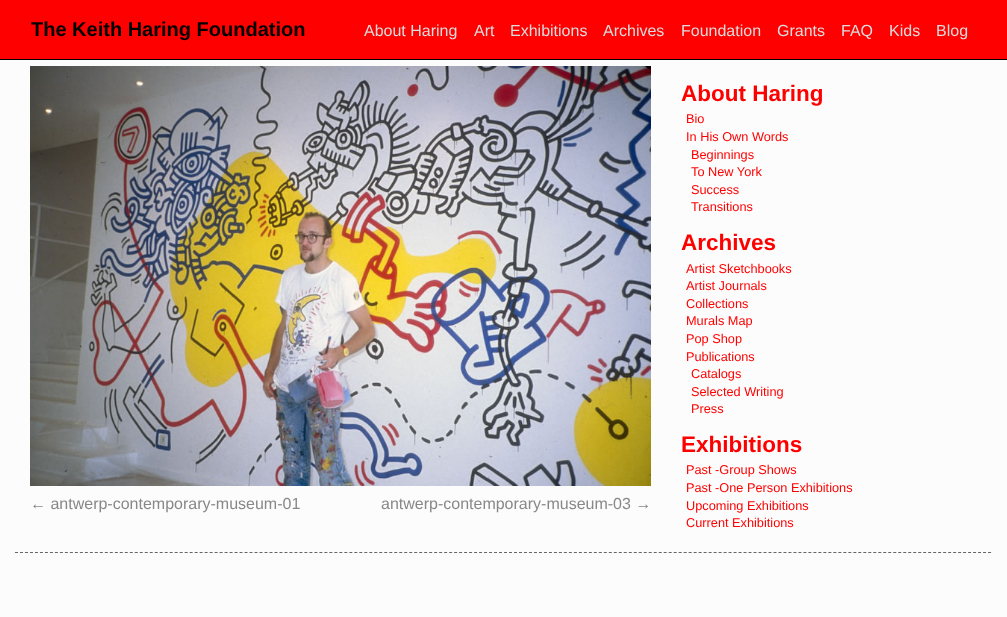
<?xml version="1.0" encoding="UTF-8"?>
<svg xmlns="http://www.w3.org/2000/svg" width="1007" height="617">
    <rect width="100%" height="100%" fill="#FCFCFC"/>
    <rect x="0" y="0" width="1007" height="59" fill="#FF0000"/>
    <rect x="0" y="59" width="1007" height="1" fill="#000000"/>
    <text x="31" y="36" font-family="Liberation Sans" font-size="20" font-weight="700" fill="#000000">The Keith Haring Foundation</text>
    <text x="364" y="36" font-family="Liberation Sans" font-size="16" fill="#DDDDDD">About Haring</text>
    <text x="474" y="36" font-family="Liberation Sans" font-size="16" fill="#DDDDDD">Art</text>
    <text x="510" y="36" font-family="Liberation Sans" font-size="16" fill="#DDDDDD">Exhibitions</text>
    <text x="603" y="36" font-family="Liberation Sans" font-size="16" fill="#DDDDDD">Archives</text>
    <text x="681" y="36" font-family="Liberation Sans" font-size="16" fill="#DDDDDD">Foundation</text>
    <text x="777" y="36" font-family="Liberation Sans" font-size="16" fill="#DDDDDD">Grants</text>
    <text x="841" y="36" font-family="Liberation Sans" font-size="16" fill="#DDDDDD">FAQ</text>
    <text x="889" y="36" font-family="Liberation Sans" font-size="16" fill="#DDDDDD">Kids</text>
    <text x="936" y="36" font-family="Liberation Sans" font-size="16" fill="#DDDDDD">Blog</text>
    <image x="30" y="66" width="621" height="420" href="img_01.png"/>
    <text x="30" y="509" font-family="Liberation Sans" font-size="16" fill="#888888">← antwerp-contemporary-museum-01</text>
    <text x="381" y="509" font-family="Liberation Sans" font-size="16" fill="#888888">antwerp-contemporary-museum-03 →</text>
    <text x="681" y="101" font-family="Liberation Sans" font-size="22.5" font-weight="700" fill="#FF0000">About Haring</text>
    <text font-family="Liberation Sans" font-size="12.75" fill="#FF0000">
        <tspan x="686" y="123">Bio</tspan>
        <tspan x="686" y="141">In His Own Words</tspan>
    </text>
    <text font-family="Liberation Sans" font-size="12.75" fill="#FF0000">
        <tspan x="691" y="159">Beginnings</tspan>
        <tspan x="691" y="176">To New York</tspan>
        <tspan x="691" y="194">Success</tspan>
        <tspan x="691" y="211">Transitions</tspan>
    </text>
    <text x="681" y="250" font-family="Liberation Sans" font-size="22.5" font-weight="700" fill="#FF0000">Archives</text>
    <text font-family="Liberation Sans" font-size="12.75" fill="#FF0000">
        <tspan x="686" y="273">Artist Sketchbooks</tspan>
        <tspan x="686" y="290">Artist Journals</tspan>
        <tspan x="686" y="308">Collections</tspan>
        <tspan x="686" y="325">Murals Map</tspan>
        <tspan x="686" y="343">Pop Shop</tspan>
        <tspan x="686" y="361">Publications</tspan>
    </text>
    <text font-family="Liberation Sans" font-size="12.75" fill="#FF0000">
        <tspan x="691" y="378">Catalogs</tspan>
        <tspan x="691" y="396">Selected Writing</tspan>
        <tspan x="691" y="413">Press</tspan>
    </text>
    <text x="681" y="452" font-family="Liberation Sans" font-size="22.5" font-weight="700" fill="#FF0000">Exhibitions</text>
    <text font-family="Liberation Sans" font-size="12.75" fill="#FF0000">
        <tspan x="686" y="474">Past -Group Shows</tspan>
        <tspan x="686" y="492">Past -One Person Exhibitions</tspan>
        <tspan x="686" y="510">Upcoming Exhibitions</tspan>
        <tspan x="686" y="527">Current Exhibitions</tspan>
    </text>
    <path d="M 15 552.5 H 992" fill="none" stroke="#666666" stroke-dasharray="3 1.99"/>
</svg>
